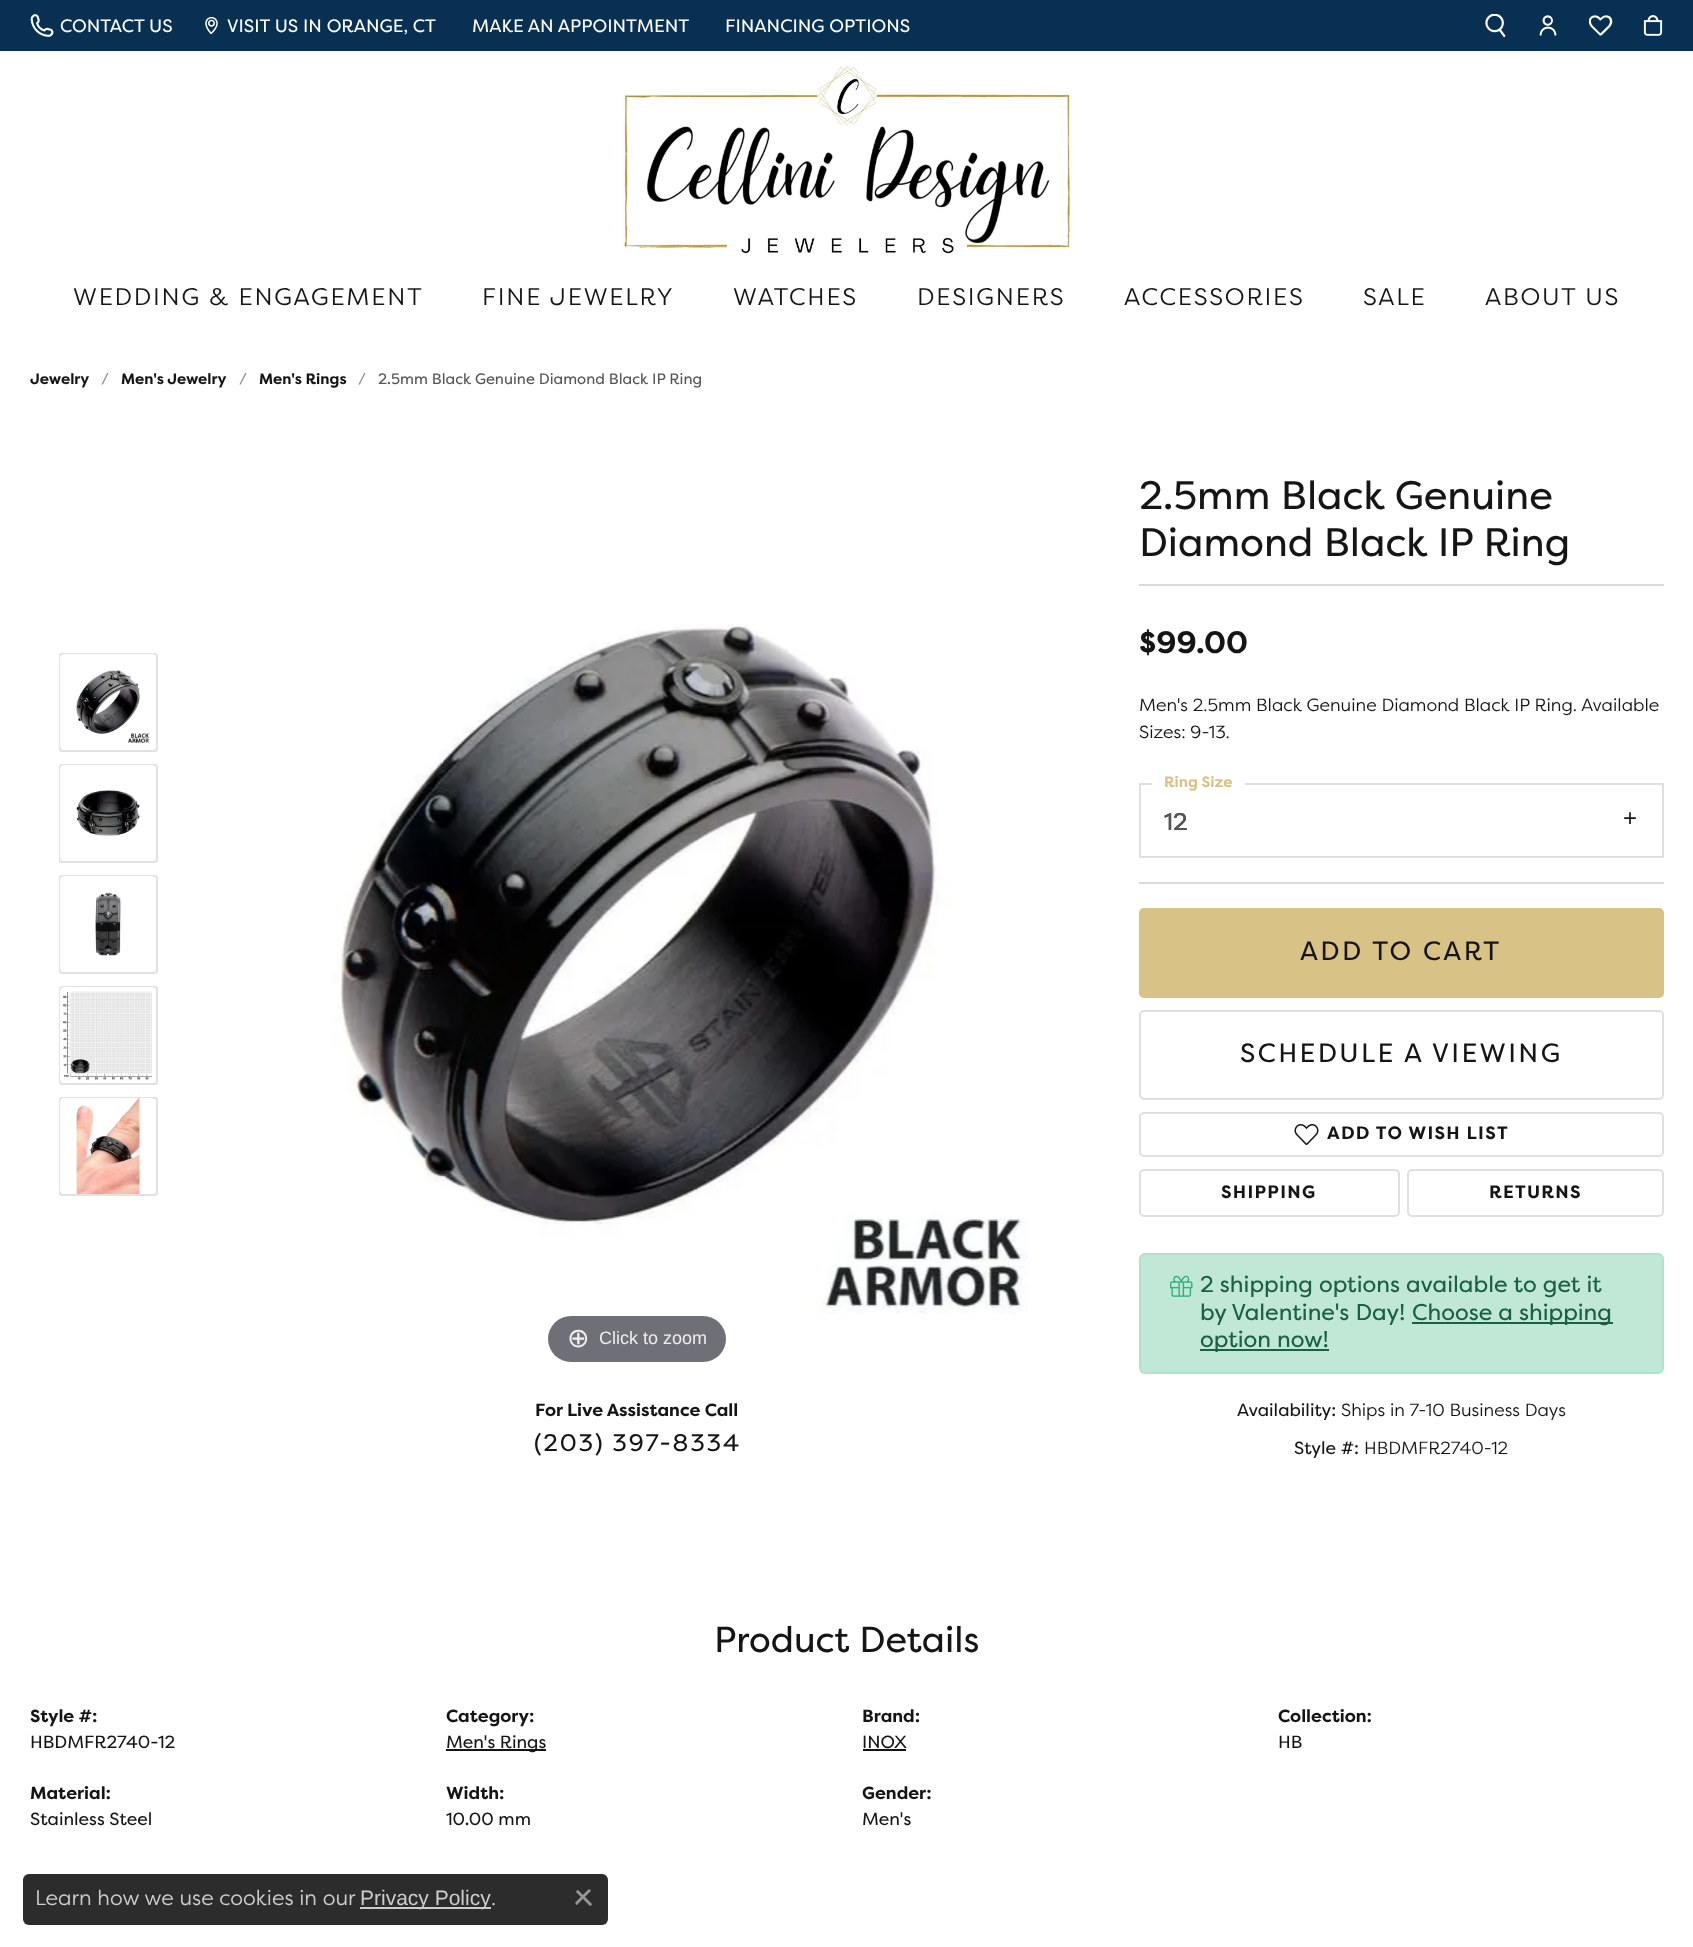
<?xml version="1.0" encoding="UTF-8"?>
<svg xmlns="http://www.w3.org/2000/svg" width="1693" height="1947">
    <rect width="100%" height="100%" fill="#083052"/>
    <image x="30" y="14" width="24" height="23" href="img_01.png"/>
    <text x="60" y="32" font-family="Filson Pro" font-size="18" fill="#FFFFFF">CONTACT US</text>
    <image x="205" y="17" width="13" height="18" href="img_02.png"/>
    <text x="227" y="32" font-family="Filson Pro" font-size="18" fill="#FFFFFF">VISIT US IN ORANGE, CT</text>
    <text x="472" y="32" font-family="Filson Pro" font-size="18" fill="#FFFFFF">MAKE AN APPOINTMENT</text>
    <text x="725" y="32" font-family="Filson Pro" font-size="18" fill="#FFFFFF">FINANCING OPTIONS</text>
    <image x="1485" y="14" width="21" height="24" href="img_03.png"/>
    <image x="1539" y="15" width="18" height="21" href="img_04.png"/>
    <image x="1589" y="15" width="24" height="21" href="img_05.png"/>
    <image x="1643" y="15" width="20" height="21" href="img_06.png"/>
    <rect x="0" y="51" width="1693" height="1896" fill="#FFFFFF"/>
    <image x="622" y="66" width="450" height="188" href="img_07.png"/>
    <text x="73" y="305" font-family="'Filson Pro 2'" font-size="24" letter-spacing="1.8" fill="#151515">WEDDING &amp; ENGAGEMENT</text>
    <text x="482" y="305" font-family="'Filson Pro 2'" font-size="24" letter-spacing="1.8" fill="#151515">FINE JEWELRY</text>
    <text x="733" y="305" font-family="'Filson Pro 2'" font-size="24" letter-spacing="1.8" fill="#151515">WATCHES</text>
    <text x="917" y="305" font-family="'Filson Pro 2'" font-size="24" letter-spacing="1.8" fill="#151515">DESIGNERS</text>
    <text x="1124" y="305" font-family="'Filson Pro 2'" font-size="24" letter-spacing="1.8" fill="#151515">ACCESSORIES</text>
    <text x="1363" y="305" font-family="'Filson Pro 2'" font-size="24" letter-spacing="1.8" fill="#151515">SALE</text>
    <text x="1485" y="305" font-family="'Filson Pro 2'" font-size="24" letter-spacing="1.8" fill="#151515">ABOUT US</text>
    <text x="30" y="384" font-family="Filson Pro" font-size="15" font-weight="700" fill="#151515">Jewelry</text>
    <text x="101" y="384" font-family="Filson Pro" font-size="15" fill="#949290">/</text>
    <text x="121" y="384" font-family="Filson Pro" font-size="15" font-weight="700" fill="#151515">Men's Jewelry</text>
    <text x="239" y="384" font-family="Filson Pro" font-size="15" fill="#949290">/</text>
    <text x="259" y="384" font-family="Filson Pro" font-size="15" font-weight="700" fill="#151515">Men's Rings</text>
    <text x="358" y="384" font-family="Filson Pro" font-size="15" fill="#949290">/</text>
    <text x="378" y="384" font-family="Filson Pro" font-size="15" fill="#555555">2.5mm Black Genuine Diamond Black IP Ring</text>
    <rect x="59" y="653" width="99" height="99" rx="3" fill="#F3F3F3"/>
    <rect x="60" y="654" width="97" height="97" rx="2" fill="none" stroke="#151515" stroke-opacity="0.07" stroke-width="2"/>
    <image x="60" y="654" width="96" height="96" href="img_08.png"/>
    <rect x="59" y="764" width="99" height="99" rx="3" fill="#F3F3F3"/>
    <rect x="60" y="765" width="97" height="97" rx="2" fill="none" stroke="#151515" stroke-opacity="0.07" stroke-width="2"/>
    <image x="60" y="765" width="96" height="96" href="img_09.png"/>
    <rect x="59" y="875" width="99" height="99" rx="3" fill="#F3F3F3"/>
    <rect x="60" y="876" width="97" height="97" rx="2" fill="none" stroke="#151515" stroke-opacity="0.07" stroke-width="2"/>
    <image x="60" y="876" width="96" height="96" href="img_10.png"/>
    <rect x="59" y="986" width="99" height="99" rx="3" fill="#F3F3F3"/>
    <rect x="60" y="987" width="97" height="97" rx="2" fill="none" stroke="#151515" stroke-opacity="0.07" stroke-width="2"/>
    <image x="60" y="987" width="96" height="96" href="img_11.png"/>
    <rect x="59" y="1097" width="99" height="99" rx="3" fill="#F3F3F3"/>
    <rect x="60" y="1098" width="97" height="97" rx="2" fill="none" stroke="#151515" stroke-opacity="0.07" stroke-width="2"/>
    <image x="60" y="1098" width="96" height="96" href="img_12.png"/>
    <image x="331" y="624" width="697" height="690" href="img_13.png"/>
    <rect x="548" y="1316" width="178" height="46" rx="23" fill="#6F7077"/>
    <text x="567" y="1347" font-family="DejaVu Sans" font-size="27" fill="#EEEEEE">⊕</text>
    <text x="599" y="1344" font-family="Liberation Sans" font-size="18" fill="#EEEEEE">Click to zoom</text>
    <text x="535" y="1416" font-family="Filson Pro" font-size="17.65" font-weight="700" fill="#151515">For Live Assistance Call</text>
    <text x="534" y="1451" font-family="Filson Pro" font-size="24" letter-spacing="1.8" fill="#151515">(203) 397-8334</text>
    <text font-family="Filson Pro" font-size="39.6" fill="#151515">
        <tspan x="1139" y="509">2.5mm Black Genuine</tspan>
        <tspan x="1139" y="556">Diamond Black IP Ring</tspan>
    </text>
    <rect x="1139" y="584" width="525" height="2" fill="#DBDADA"/>
    <text x="1139" y="653" font-family="Filson Pro" font-size="31" font-weight="700" fill="#151515">$99.00</text>
    <text font-family="'Filson Pro 2'" font-size="17.65" fill="#151515">
        <tspan x="1139" y="711">Men's 2.5mm Black Genuine Diamond Black IP Ring. Available</tspan>
        <tspan x="1139" y="738">Sizes: 9-13.</tspan>
    </text>
    <rect x="1140" y="784" width="523" height="73" fill="none" stroke="#DFDFDE" stroke-width="2"/>
    <rect x="1152" y="783" width="93" height="2" fill="#FFFFFF"/>
    <text x="1164" y="787" font-family="Filson Pro" font-size="15" font-weight="700" fill="#D8C285">Ring Size</text>
    <text x="1164" y="830" font-family="Filson Pro" font-size="24" fill="#151515">12</text>
    <text x="1623" y="826" font-family="Liberation Sans" font-size="24" fill="#151515">+</text>
    <text x="1164" y="830" font-family="Filson Pro" font-size="24" fill="#555555">12</text>
    <rect x="1139" y="882" width="525" height="2" fill="#DBDADA"/>
    <rect x="1140" y="909" width="523" height="88" rx="4" fill="#D8C285" stroke="#D8C285" stroke-width="2"/>
    <text x="1300" y="960" font-family="Filson Pro" font-size="26.4" letter-spacing="2.4" fill="#151515">ADD TO CART</text>
    <rect x="1140" y="1011" width="523" height="88" rx="4" fill="none" stroke="#DFDFDE" stroke-width="2"/>
    <text x="1240" y="1062" font-family="Filson Pro" font-size="26.4" letter-spacing="2.4" fill="#151515">SCHEDULE A VIEWING</text>
    <rect x="1140" y="1113" width="523" height="43" rx="4" fill="none" stroke="#DFDFDE" stroke-width="2"/>
    <image x="1294" y="1124" width="25" height="21" href="img_14.png"/>
    <text x="1327" y="1139" font-family="Filson Pro" font-size="18" font-weight="700" letter-spacing="1.25" fill="#151515">ADD TO WISH LIST</text>
    <rect x="1140" y="1170" width="259" height="46" rx="4" fill="none" stroke="#DFDFDE" stroke-width="2"/>
    <text x="1221" y="1198" font-family="Filson Pro" font-size="18" font-weight="700" letter-spacing="1.25" fill="#151515">SHIPPING</text>
    <rect x="1408" y="1170" width="255" height="46" rx="4" fill="none" stroke="#DFDFDE" stroke-width="2"/>
    <text x="1489" y="1198" font-family="Filson Pro" font-size="18" font-weight="700" letter-spacing="1.25" fill="#151515">RETURNS</text>
    <rect x="1139" y="1253" width="525" height="121" rx="6" fill="#C1E8D7"/>
    <rect x="1140" y="1254" width="523" height="119" rx="5" fill="none" stroke="#30B178" stroke-opacity="0.1" stroke-width="2"/>
    <image x="1170" y="1275" width="23" height="22" href="img_15.png"/>
    <text font-family="Filson Pro" font-size="22.75" fill="#1A6142">
        <tspan x="1200" y="1292">2 shipping options available to get it</tspan>
        <tspan x="1200" y="1320">by Valentine's Day!</tspan>
    </text>
    <rect x="1412" y="1322" width="201" height="2" fill="#1A6142"/>
    <text x="1412" y="1320" font-family="Filson Pro" font-size="22.75" fill="#1A6142">Choose a shipping</text>
    <rect x="1200" y="1349" width="129" height="2" fill="#1A6142"/>
    <text x="1200" y="1347" font-family="Filson Pro" font-size="22.75" fill="#1A6142">option now!</text>
    <text x="1237" y="1416" font-family="Filson Pro" font-size="17.65" fill="#151515">Availability:</text>
    <text x="1341" y="1416" font-family="'Filson Pro 2'" font-size="17.65" fill="#151515">Ships in 7-10 Business Days</text>
    <text x="1294" y="1454" font-family="Filson Pro" font-size="17.65" fill="#151515">Style #:</text>
    <text x="1364" y="1454" font-family="'Filson Pro 2'" font-size="17.65" fill="#151515">HBDMFR2740-12</text>
    <text x="714" y="1652" font-family="Filson Pro" font-size="36" fill="#151515">Product Details</text>
    <text x="30" y="1722" font-family="Filson Pro" font-size="17.65" font-weight="700" fill="#151515">Style #:</text>
    <text x="30" y="1748" font-family="Filson Pro" font-size="17.65" fill="#151515">HBDMFR2740-12</text>
    <text x="30" y="1799" font-family="Filson Pro" font-size="17.65" font-weight="700" fill="#151515">Material:</text>
    <text x="30" y="1825" font-family="Filson Pro" font-size="17.65" fill="#151515">Stainless Steel</text>
    <text x="446" y="1722" font-family="Filson Pro" font-size="17.65" font-weight="700" fill="#151515">Category:</text>
    <rect x="446" y="1749" width="100" height="2" fill="#151515"/>
    <text x="446" y="1748" font-family="Filson Pro" font-size="17.65" fill="#151515">Men's Rings</text>
    <text x="446" y="1799" font-family="Filson Pro" font-size="17.65" font-weight="700" fill="#151515">Width:</text>
    <text x="446" y="1825" font-family="Filson Pro" font-size="17.65" fill="#151515">10.00 mm</text>
    <text x="862" y="1722" font-family="Filson Pro" font-size="17.65" font-weight="700" fill="#151515">Brand:</text>
    <text x="862" y="1748" font-family="Filson Pro" font-size="17.65" fill="#151515">INOX</text>
    <rect x="863" y="1749" width="43" height="2" fill="#151515"/>
    <text x="862" y="1799" font-family="Filson Pro" font-size="17.65" font-weight="700" fill="#151515">Gender:</text>
    <text x="862" y="1825" font-family="Filson Pro" font-size="17.65" fill="#151515">Men's</text>
    <text x="1278" y="1722" font-family="Filson Pro" font-size="17.65" font-weight="700" fill="#151515">Collection:</text>
    <text x="1278" y="1748" font-family="Filson Pro" font-size="17.65" fill="#151515">HB</text>
    <rect x="23" y="1874" width="585" height="51" rx="6" fill="#2C2C2C"/>
    <text x="35" y="1905" font-family="'Filson Pro 2'" font-size="21" fill="#CCCCCC">Learn how we use cookies in our</text>
    <rect x="360" y="1907" width="131" height="2" fill="#CCCCCC"/>
    <text x="360" y="1905" font-family="Liberation Sans" font-size="21" fill="#CCCCCC">Privacy Policy</text>
    <text x="491" y="1905" font-family="'Filson Pro 2'" font-size="21" fill="#CCCCCC">.</text>
    <image x="575" y="1889" width="17" height="17" href="img_16.png"/>
</svg>
